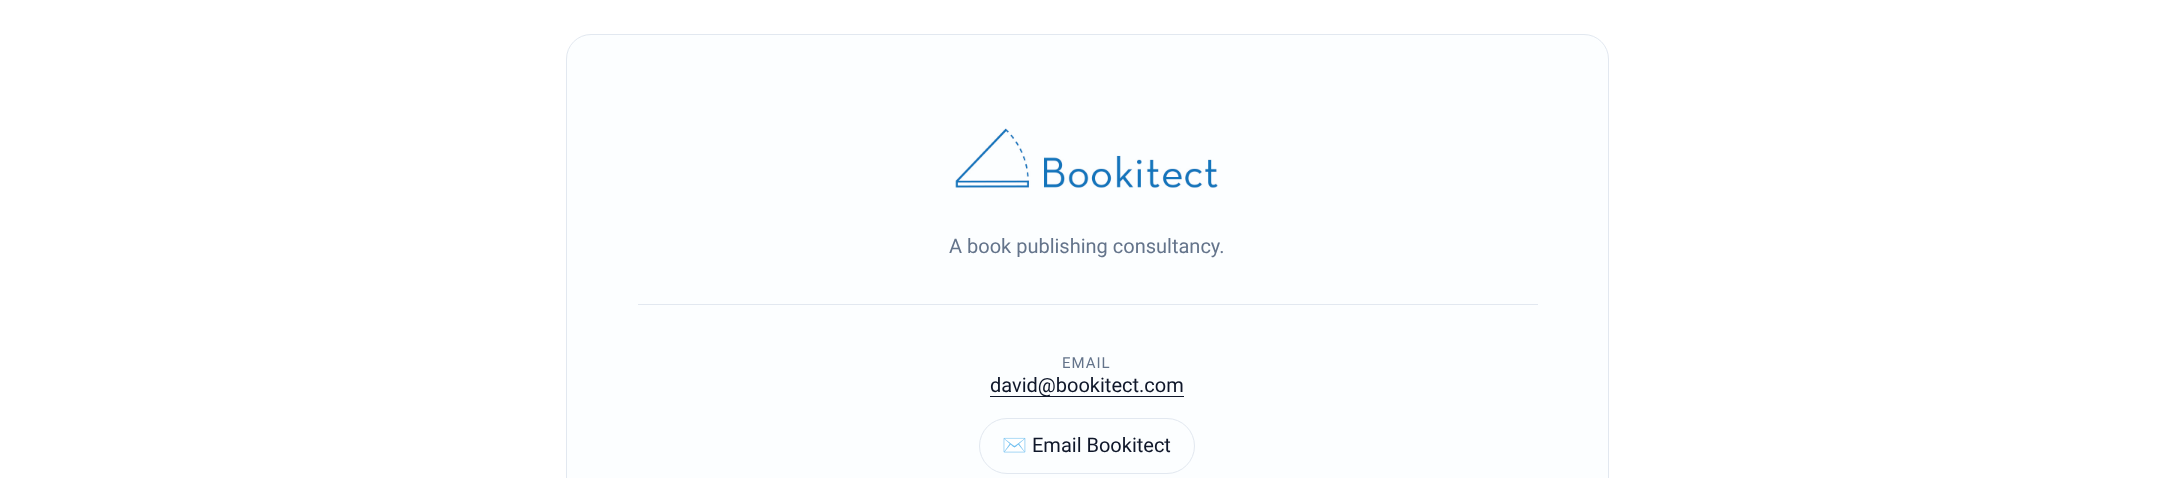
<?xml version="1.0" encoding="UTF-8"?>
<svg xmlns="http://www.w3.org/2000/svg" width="2173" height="478">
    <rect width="100%" height="100%" fill="#FFFFFF"/>
    <rect x="566.5" y="34.5" width="1042" height="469" rx="24.5" fill="#FCFEFF" stroke="#E2E8F0"/>
    <image x="955" y="128" width="263" height="60" href="img_01.png"/>
    <text x="949" y="253" font-family="Roboto" font-size="20" fill="#64748B">A book publishing consultancy.</text>
    <rect x="638" y="304" width="900" height="1" fill="#E2E8F0"/>
    <text x="1062" y="368" font-family="Roboto" font-size="15" letter-spacing="1" fill="#64748B">EMAIL</text>
    <rect x="990" y="396" width="194" height="1" fill="#0F172A"/>
    <text x="990" y="392" font-family="Roboto" font-size="20" fill="#0F172A">david@bookitect.com</text>
    <rect x="979.5" y="418.5" width="215" height="55" rx="27.5" fill="none" stroke="#E2E8F0"/>
    <text x="1002" y="452" font-family="Noto Color Emoji" font-size="20" fill="#0F172A">✉️</text>
    <text x="1032" y="452" font-family="Roboto" font-size="20" fill="#0F172A">Email Bookitect</text>
</svg>
